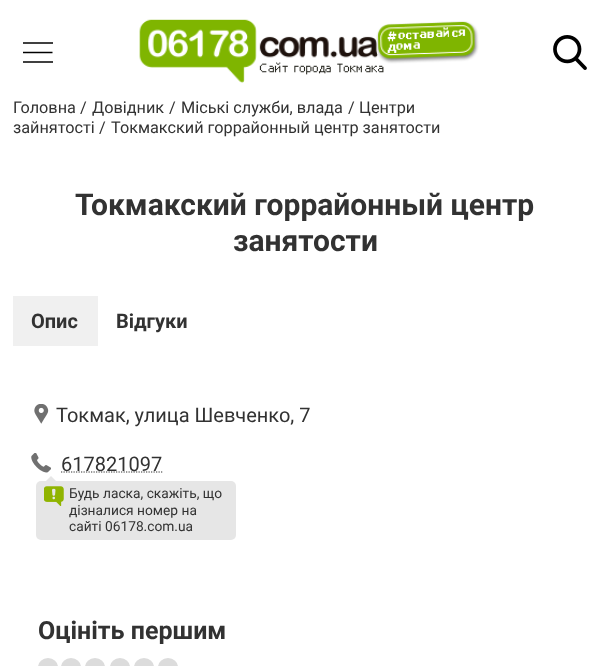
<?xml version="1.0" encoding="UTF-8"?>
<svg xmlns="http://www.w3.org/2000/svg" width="609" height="666">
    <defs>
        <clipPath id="clip1"><rect x="23" y="38" width="30" height="30"/></clipPath>
    </defs>
    <rect width="100%" height="100%" fill="#FFFFFF"/>
    <rect x="23" y="42" width="30" height="2" fill="#404040"/>
    <g clip-path="url(#clip1)">
        <path d="M 22.5 52.5 H 52.5" fill="none" stroke="#000000" stroke-width="1.5"/>
    </g>
    <rect x="23" y="61" width="30" height="2" fill="#404040"/>
    <image x="139" y="19" width="340" height="64" href="img_01.png"/>
    <image x="553" y="35" width="34" height="35" href="img_02.png"/>
    <text x="13" y="113" font-family="Roboto" font-size="16.25" fill="#323232">Головна</text>
    <text x="80" y="113" font-family="Roboto" font-size="16.25" fill="#323232">/</text>
    <text x="92" y="113" font-family="Roboto" font-size="16.25" fill="#323232">Довідник</text>
    <text x="169" y="113" font-family="Roboto" font-size="16.25" fill="#323232">/</text>
    <text x="181" y="113" font-family="Roboto" font-size="16.25" fill="#323232">Міські служби, влада</text>
    <text x="348" y="113" font-family="Roboto" font-size="16.25" fill="#323232">/</text>
    <text x="359" y="113" font-family="Roboto" font-size="16.25" fill="#323232">Центри</text>
    <text x="13" y="133" font-family="Roboto" font-size="16.25" fill="#323232">зайнятості</text>
    <text x="99" y="133" font-family="Roboto" font-size="16.25" fill="#323232">/</text>
    <text x="111" y="133" font-family="Roboto" font-size="16.25" fill="#323232">Токмакский горрайонный центр занятости</text>
    <text x="75" y="215" font-family="Roboto" font-size="30" font-weight="700" fill="#323232">Токмакский горрайонный центр</text>
    <text x="233" y="251" font-family="Roboto" font-size="30" font-weight="700" fill="#323232">занятости</text>
    <rect x="13" y="296" width="85" height="50" fill="#F0F0F0"/>
    <text x="31" y="328" font-family="Roboto" font-size="20" font-weight="700" fill="#323232">Опис</text>
    <text x="116" y="328" font-family="Roboto" font-size="20" font-weight="700" fill="#323232">Відгуки</text>
    <image x="34" y="404" width="15" height="20" href="img_03.png"/>
    <text x="56" y="422" font-family="Roboto" font-size="20" fill="#323232">Токмак, улица Шевченко, 7</text>
    <image x="31" y="453" width="20" height="20" href="img_04.png"/>
    <path d="M 61 472 H 162.5" fill="none" stroke="#323232" stroke-width="1.2" stroke-dasharray="1.25 1.25"/>
    <text x="61" y="471" font-family="Roboto" font-size="20" fill="#323232">617821097</text>
    <rect x="36" y="481" width="200" height="59" rx="5" fill="#E6E6E6"/>
    <path d="M 56 481 H 46 L 51 476 Z" fill="#E6E6E6"/>
    <image x="44" y="486" width="20" height="20" href="img_05.png"/>
    <text font-family="Roboto" font-size="13.75" fill="#323232">
        <tspan x="69" y="498">Будь ласка, скажіть, що</tspan>
        <tspan x="69" y="515">дізналися номер на</tspan>
        <tspan x="69" y="531">сайті 06178.com.ua</tspan>
    </text>
    <text x="38" y="639" font-family="Roboto" font-size="25" font-weight="700" fill="#323232">Оцініть першим</text>
    <rect x="38" y="658" width="20" height="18" rx="10" fill="#DCDCDC"/>
    <rect x="61" y="658" width="20" height="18" rx="10" fill="#DCDCDC"/>
    <rect x="85" y="658" width="20" height="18" rx="10" fill="#DCDCDC"/>
    <rect x="110" y="658" width="20" height="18" rx="10" fill="#DCDCDC"/>
    <rect x="134" y="658" width="20" height="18" rx="10" fill="#DCDCDC"/>
    <rect x="158" y="658" width="20" height="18" rx="10" fill="#DCDCDC"/>
</svg>
